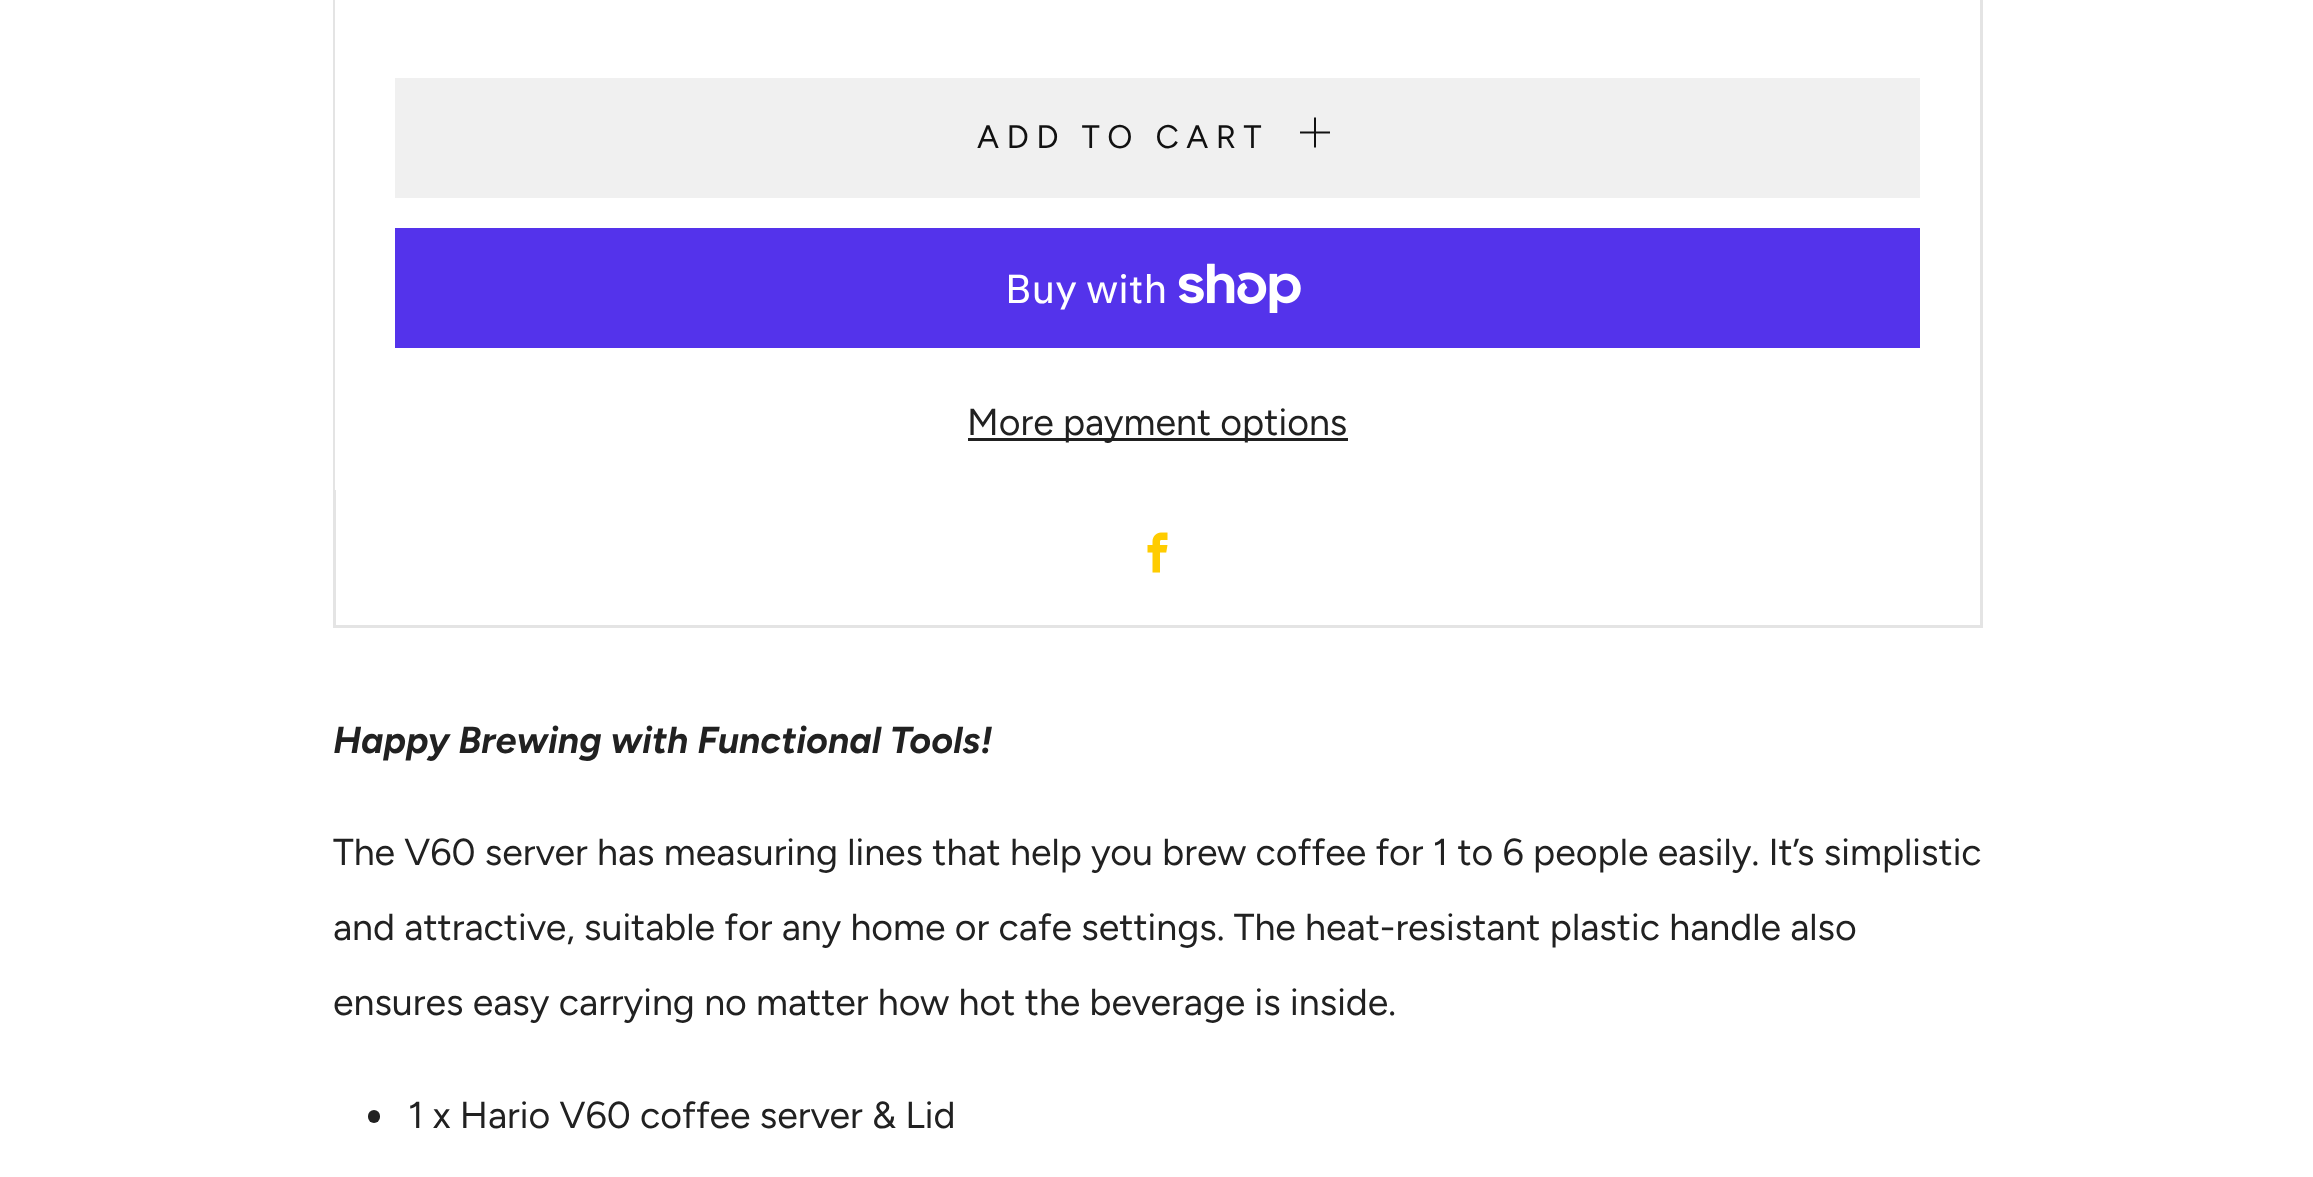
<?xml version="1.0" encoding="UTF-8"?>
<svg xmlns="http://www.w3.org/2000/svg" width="2313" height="1177">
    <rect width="100%" height="100%" fill="#FFFFFF"/>
    <rect x="334.5" y="-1.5" width="1647" height="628" fill="none" stroke="#E4E4E4" stroke-width="3"/>
    <rect x="335" y="0" width="1" height="490" fill="#FFFFFF"/>
    <rect x="395" y="78" width="1525" height="120" fill="#F0F0F0"/>
    <text x="977" y="148" font-family="Figtree" font-size="32.5" letter-spacing="7.5" fill="#111111">ADD TO CART</text>
    <image x="1300" y="117" width="30" height="31" href="img_01.png"/>
    <rect x="395" y="228" width="1525" height="120" fill="#5433EB"/>
    <text x="1005" y="303" font-family="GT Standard" font-size="40" fill="#FFFFFF">Buy with</text>
    <image x="1178" y="263" width="123" height="50" href="img_02.png"/>
    <rect x="968" y="438" width="380" height="3" fill="#212121"/>
    <text x="967" y="435" font-family="Figtree" font-size="37.5" fill="#212121">More payment options</text>
    <image x="1147" y="532" width="21" height="41" href="img_03.png"/>
    <text x="333" y="753" font-family="Figtree" font-size="37.5" font-weight="700" font-style="italic" fill="#212121">Happy Brewing with Functional Tools!</text>
    <text x="333" y="865" font-family="Figtree" font-size="37.5" fill="#212121">The V60 server has measuring lines that help you brew coffee for 1 to 6 people easily. It’s simplistic</text>
    <text x="333" y="940" font-family="Figtree" font-size="37.5" fill="#212121">and attractive, suitable for any home or cafe settings. The heat-resistant plastic handle also</text>
    <text x="333" y="1015" font-family="Figtree" font-size="37.5" fill="#212121">ensures easy carrying no matter how hot the beverage is inside.</text>
    <rect x="368" y="1110" width="12" height="13" rx="6" fill="#212121"/>
    <text x="408" y="1128" font-family="Figtree" font-size="37.5" fill="#212121">1 x Hario V60 coffee server &amp; Lid</text>
</svg>
